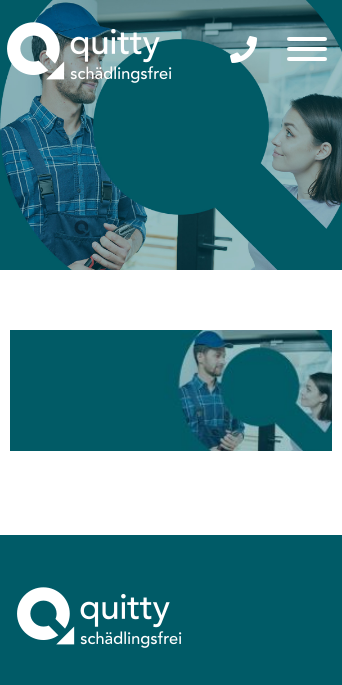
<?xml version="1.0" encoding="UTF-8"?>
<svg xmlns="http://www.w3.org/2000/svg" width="342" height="685">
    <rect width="100%" height="100%" fill="#FFFFFF"/>
    <image x="0" y="0" width="342" height="270" href="img_01.png"/>
    <image x="10" y="330" width="322" height="121" href="img_02.png"/>
    <image x="7" y="22" width="165" height="61" href="img_03.png"/>
    <image x="230" y="36" width="27" height="27" href="img_04.png"/>
    <rect x="287" y="37" width="40" height="4" rx="2" fill="#FFFFFF"/>
    <rect x="287" y="47" width="40" height="4" rx="2" fill="#FFFFFF"/>
    <rect x="287" y="57" width="40" height="4" rx="2" fill="#FFFFFF"/>
    <rect x="0" y="535" width="342" height="150" fill="#005B67"/>
    <image x="17" y="587" width="165" height="61" href="img_05.png"/>
</svg>
